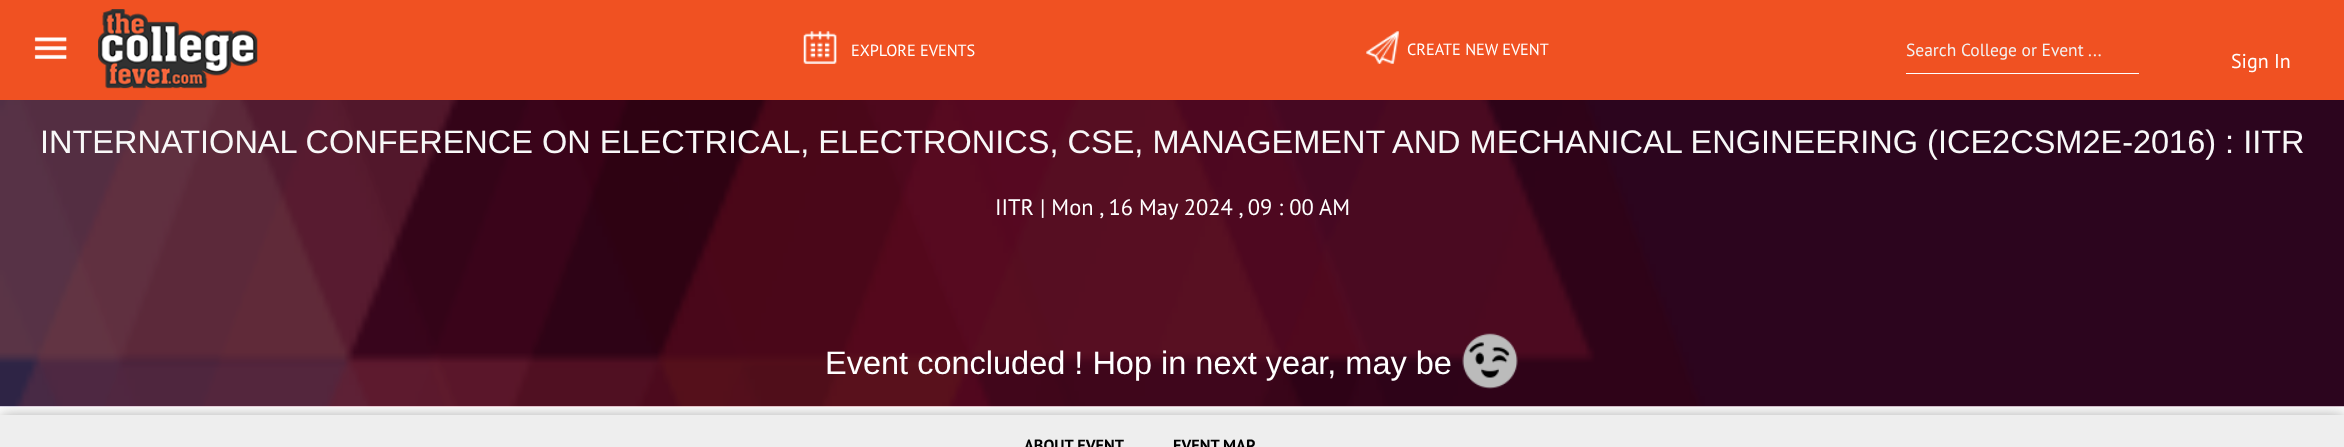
<?xml version="1.0" encoding="UTF-8"?>
<svg xmlns="http://www.w3.org/2000/svg" width="2344" height="447">
    <defs>
        <filter id="blur1" x="-50%" y="-200%" width="200%" height="500%"><feGaussianBlur stdDeviation="7.5"/></filter>
    </defs>
    <rect width="100%" height="100%" fill="#FFFFFF"/>
    <rect x="0" y="0" width="2344" height="100" fill="#F05122"/>
    <image x="34" y="37" width="33" height="22" href="img_01.png"/>
    <image x="98" y="9" width="160" height="80" href="img_02.png"/>
    <image x="803" y="31" width="34" height="33" href="img_03.png"/>
    <text x="851" y="56" font-family="PT Sans" font-size="16.25" fill="#FFFFFF">EXPLORE EVENTS</text>
    <image x="1366" y="31" width="33" height="33" href="img_04.png"/>
    <text x="1407" y="55" font-family="PT Sans" font-size="16.25" fill="#FFFFFF">CREATE NEW EVENT</text>
    <rect x="1906" y="73" width="233" height="1" fill="#FFFFFF"/>
    <text x="1906" y="56" font-family="PT Sans" font-size="17.5" fill="#F2F2F2">Search College or Event ...</text>
    <text x="2231" y="68" font-family="PT Sans" font-size="20" fill="#FFFFFF">Sign In</text>
    <rect x="0" y="416" width="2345" height="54" fill="#A3A3A2" filter="url(#blur1)"/>
    <image x="0" y="100" width="2344" height="307" href="img_05.png"/>
    <text x="40" y="153" font-family="Liberation Sans" font-size="32.5" fill="#F8F8F8">INTERNATIONAL CONFERENCE ON ELECTRICAL, ELECTRONICS, CSE, MANAGEMENT AND MECHANICAL ENGINEERING (ICE2CSM2E-2016) : IITR</text>
    <text x="995" y="215" font-family="PT Sans" font-size="22.5" fill="#FFFFFF">IITR | Mon , 16 May 2024 , 09 : 00 AM</text>
    <text x="825" y="374" font-family="Liberation Sans" font-size="32.5" fill="#FFFFFF">Event concluded ! Hop in next year, may be</text>
    <image x="1462" y="333" width="56" height="56" href="img_06.png"/>
    <rect x="0" y="415" width="2344" height="32" fill="#EEEEEE"/>
    <text x="1024" y="451" font-family="PT Sans" font-size="16.25" font-weight="700" fill="#000000">ABOUT EVENT</text>
    <text x="1173" y="451" font-family="PT Sans" font-size="16.25" font-weight="700" fill="#000000">EVENT MAP</text>
</svg>
